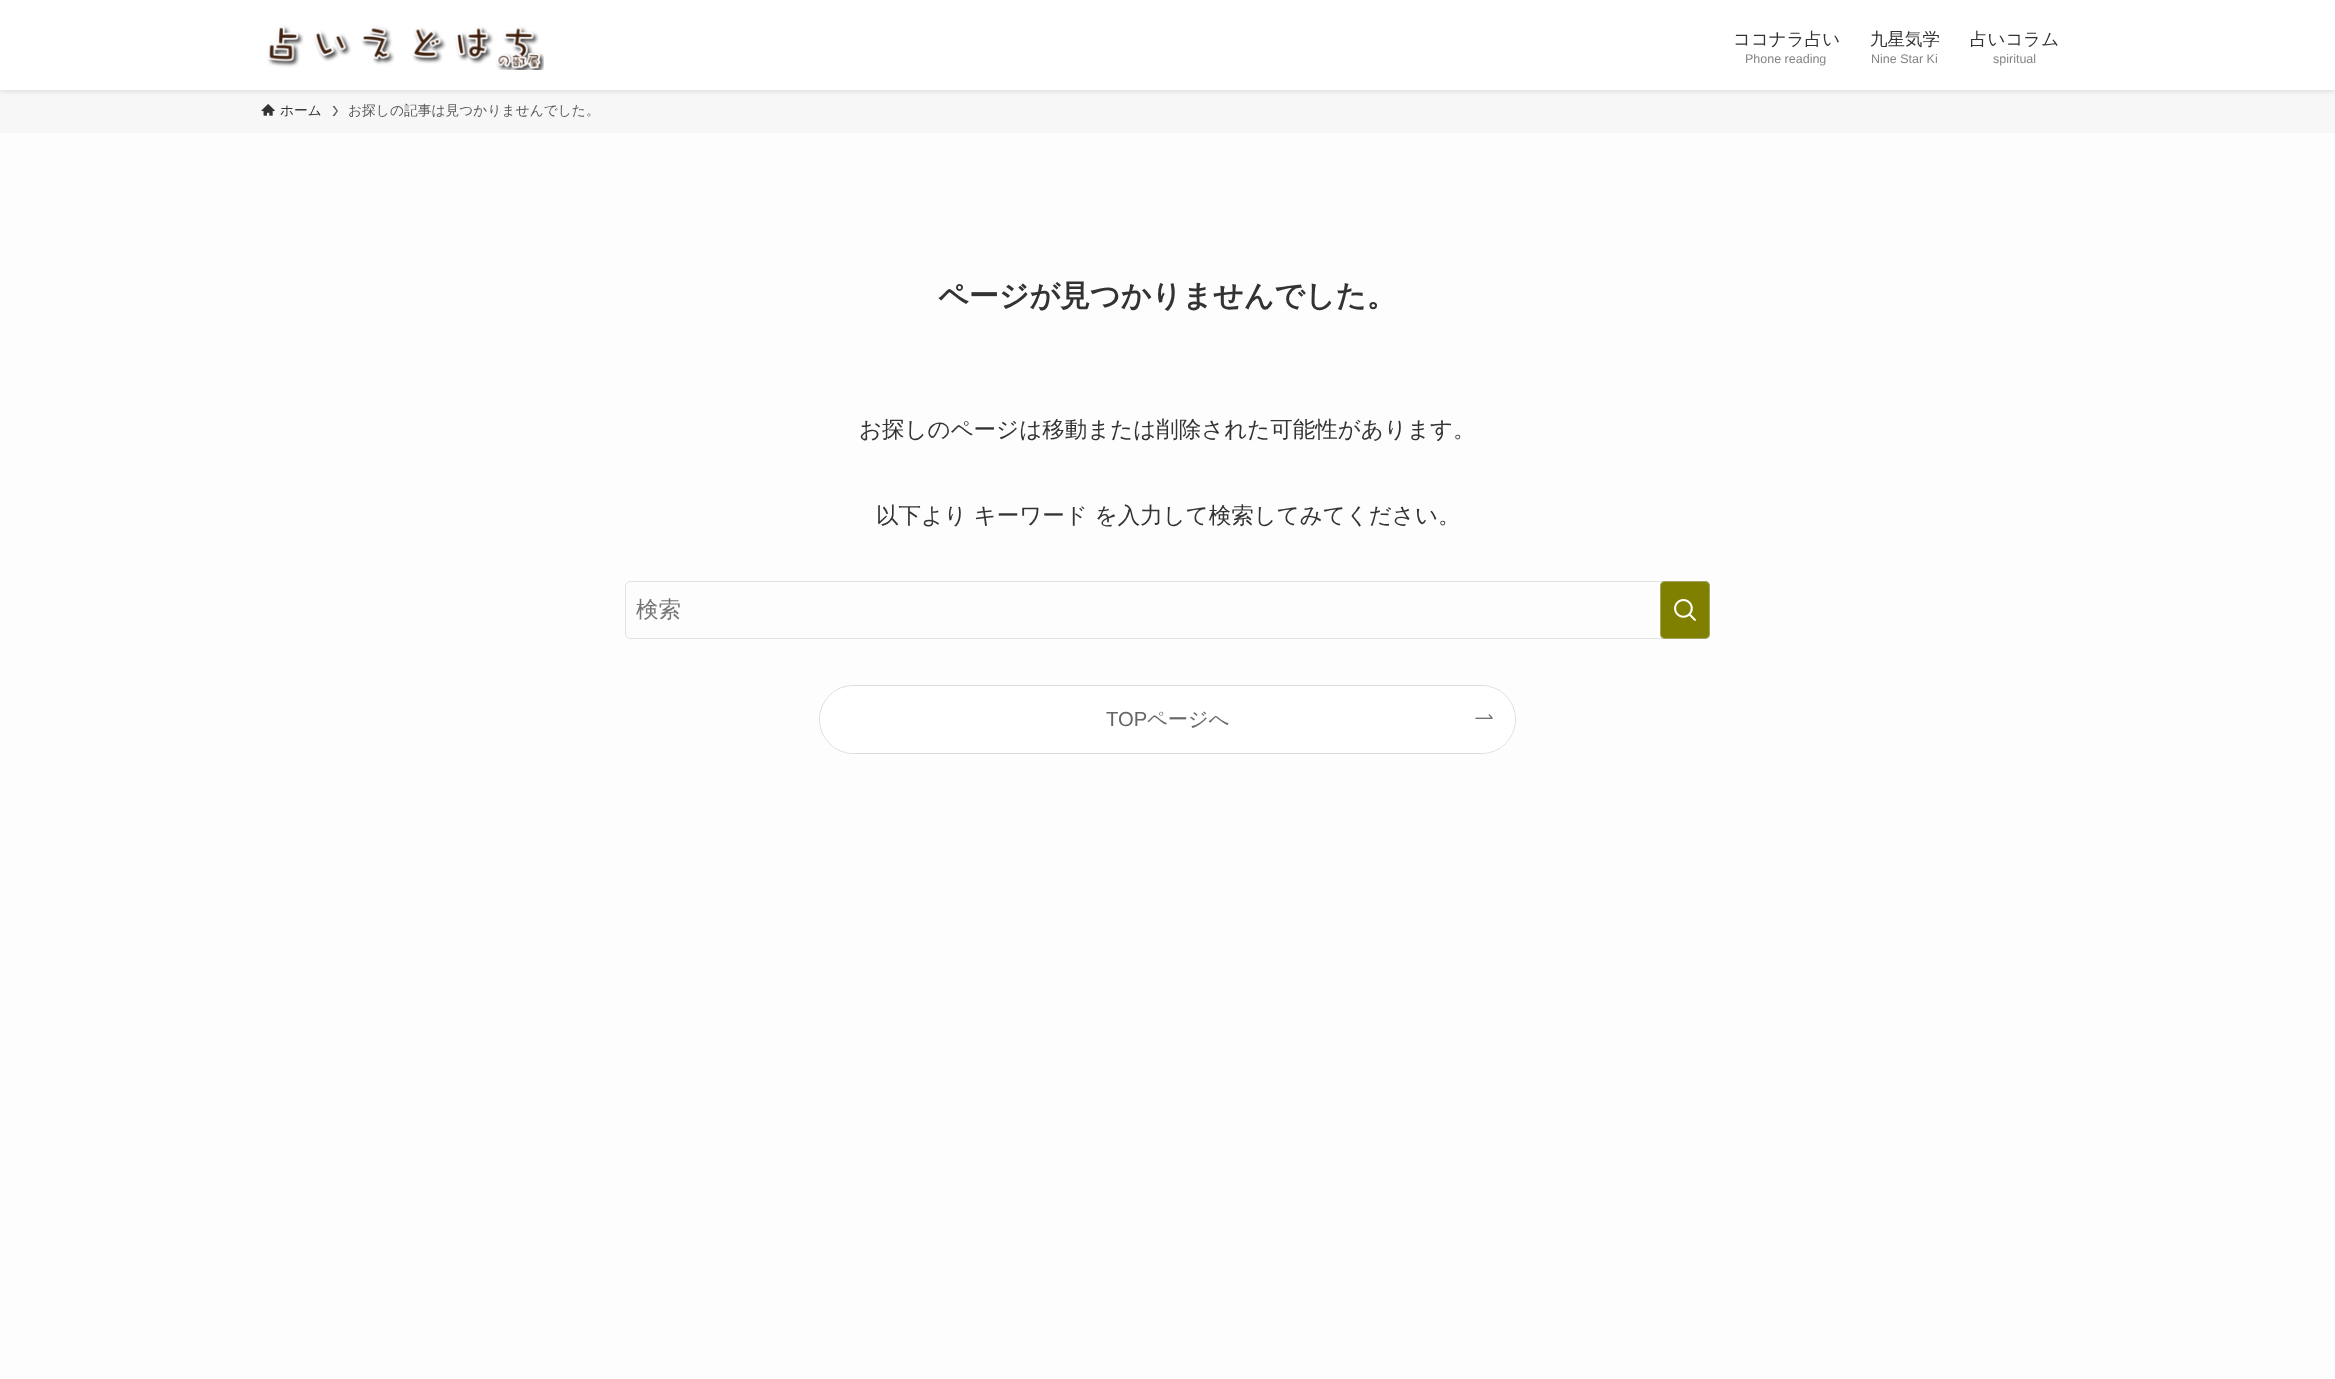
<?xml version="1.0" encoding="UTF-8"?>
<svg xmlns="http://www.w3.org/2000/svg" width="2335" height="1379">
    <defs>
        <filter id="blur1" x="-50%" y="-200%" width="200%" height="500%"><feGaussianBlur stdDeviation="2.5"/></filter>
    </defs>
    <rect width="100%" height="100%" fill="#FDFDFD"/>
    <rect x="0" y="90" width="2335" height="43" fill="#F7F7F7"/>
    <rect x="0" y="1" width="2335" height="90" fill="#000000" fill-opacity="0.12" filter="url(#blur1)"/>
    <rect x="0" y="0" width="2335" height="90" fill="#FFFFFF"/>
    <image x="267" y="25" width="277" height="45" href="img_01.png"/>
    <text x="1733" y="45" font-family="WenQuanYi Zen Hei" font-size="17.5" font-weight="500" fill="#333333">ココナラ占い</text>
    <text x="1745" y="63" font-family="Liberation Sans" font-size="12.5" fill="#858585">Phone reading</text>
    <text x="1870" y="45" font-family="WenQuanYi Zen Hei" font-size="17.5" font-weight="500" fill="#333333">九星気学</text>
    <text x="1871" y="63" font-family="Liberation Sans" font-size="12.5" fill="#858585">Nine Star Ki</text>
    <text x="1970" y="45" font-family="WenQuanYi Zen Hei" font-size="17.5" font-weight="500" fill="#333333">占いコラム</text>
    <text x="1993" y="63" font-family="Liberation Sans" font-size="12.5" fill="#858585">spiritual</text>
    <image x="261" y="104" width="14" height="12" href="img_02.png"/>
    <text x="280" y="115" font-family="WenQuanYi Zen Hei" font-size="13.75" font-weight="500" fill="#333333">ホーム</text>
    <path d="M 334.5 106 H 332.5 L 336.5 111 L 332.5 116 H 334.5 L 338 111 Z" fill="#5A5A5A"/>
    <text x="348" y="115" font-family="WenQuanYi Zen Hei" font-size="13.75" font-weight="500" fill="#5A5A5A">お探しの記事は見つかりませんでした。</text>
    <text x="938" y="306" font-family="WenQuanYi Zen Hei" font-size="30" font-weight="700" fill="#333333">ページが見つかりませんでした。</text>
    <text x="859" y="437" font-family="WenQuanYi Zen Hei" font-size="22.5" font-weight="500" fill="#333333">お探しのページは移動または削除された可能性があります。</text>
    <text x="876" y="523" font-family="WenQuanYi Zen Hei" font-size="22.5" font-weight="500" fill="#333333">以下より キーワード を入力して検索してみてください。</text>
    <rect x="625.5" y="581.5" width="1084" height="57" rx="4.5" fill="none" stroke="#E3E3E3"/>
    <text x="636" y="617" font-family="WenQuanYi Zen Hei" font-size="22.5" font-weight="500" fill="#757575">検索</text>
    <rect x="1660" y="581" width="50" height="58" rx="5" fill="#808000"/>
    <rect x="1660.5" y="581.5" width="49" height="57" rx="4.5" fill="none" stroke="#C7C7C7" stroke-opacity="0.5"/>
    <image x="1674" y="599" width="22" height="22" href="img_03.png"/>
    <rect x="819.5" y="685.5" width="696" height="68" rx="34" fill="none" stroke="#DCDCDC"/>
    <rect x="820" y="686" width="695" height="67" rx="33.5" fill="#FFFFFF"/>
    <text x="1106" y="726" font-family="Liberation Sans" font-size="20.25" fill="#666666">TOP</text>
    <text x="1147" y="726" font-family="WenQuanYi Zen Hei" font-size="20.25" font-weight="500" fill="#666666">ページへ</text>
    <image x="1475" y="714" width="18" height="5" href="img_04.png"/>
</svg>
